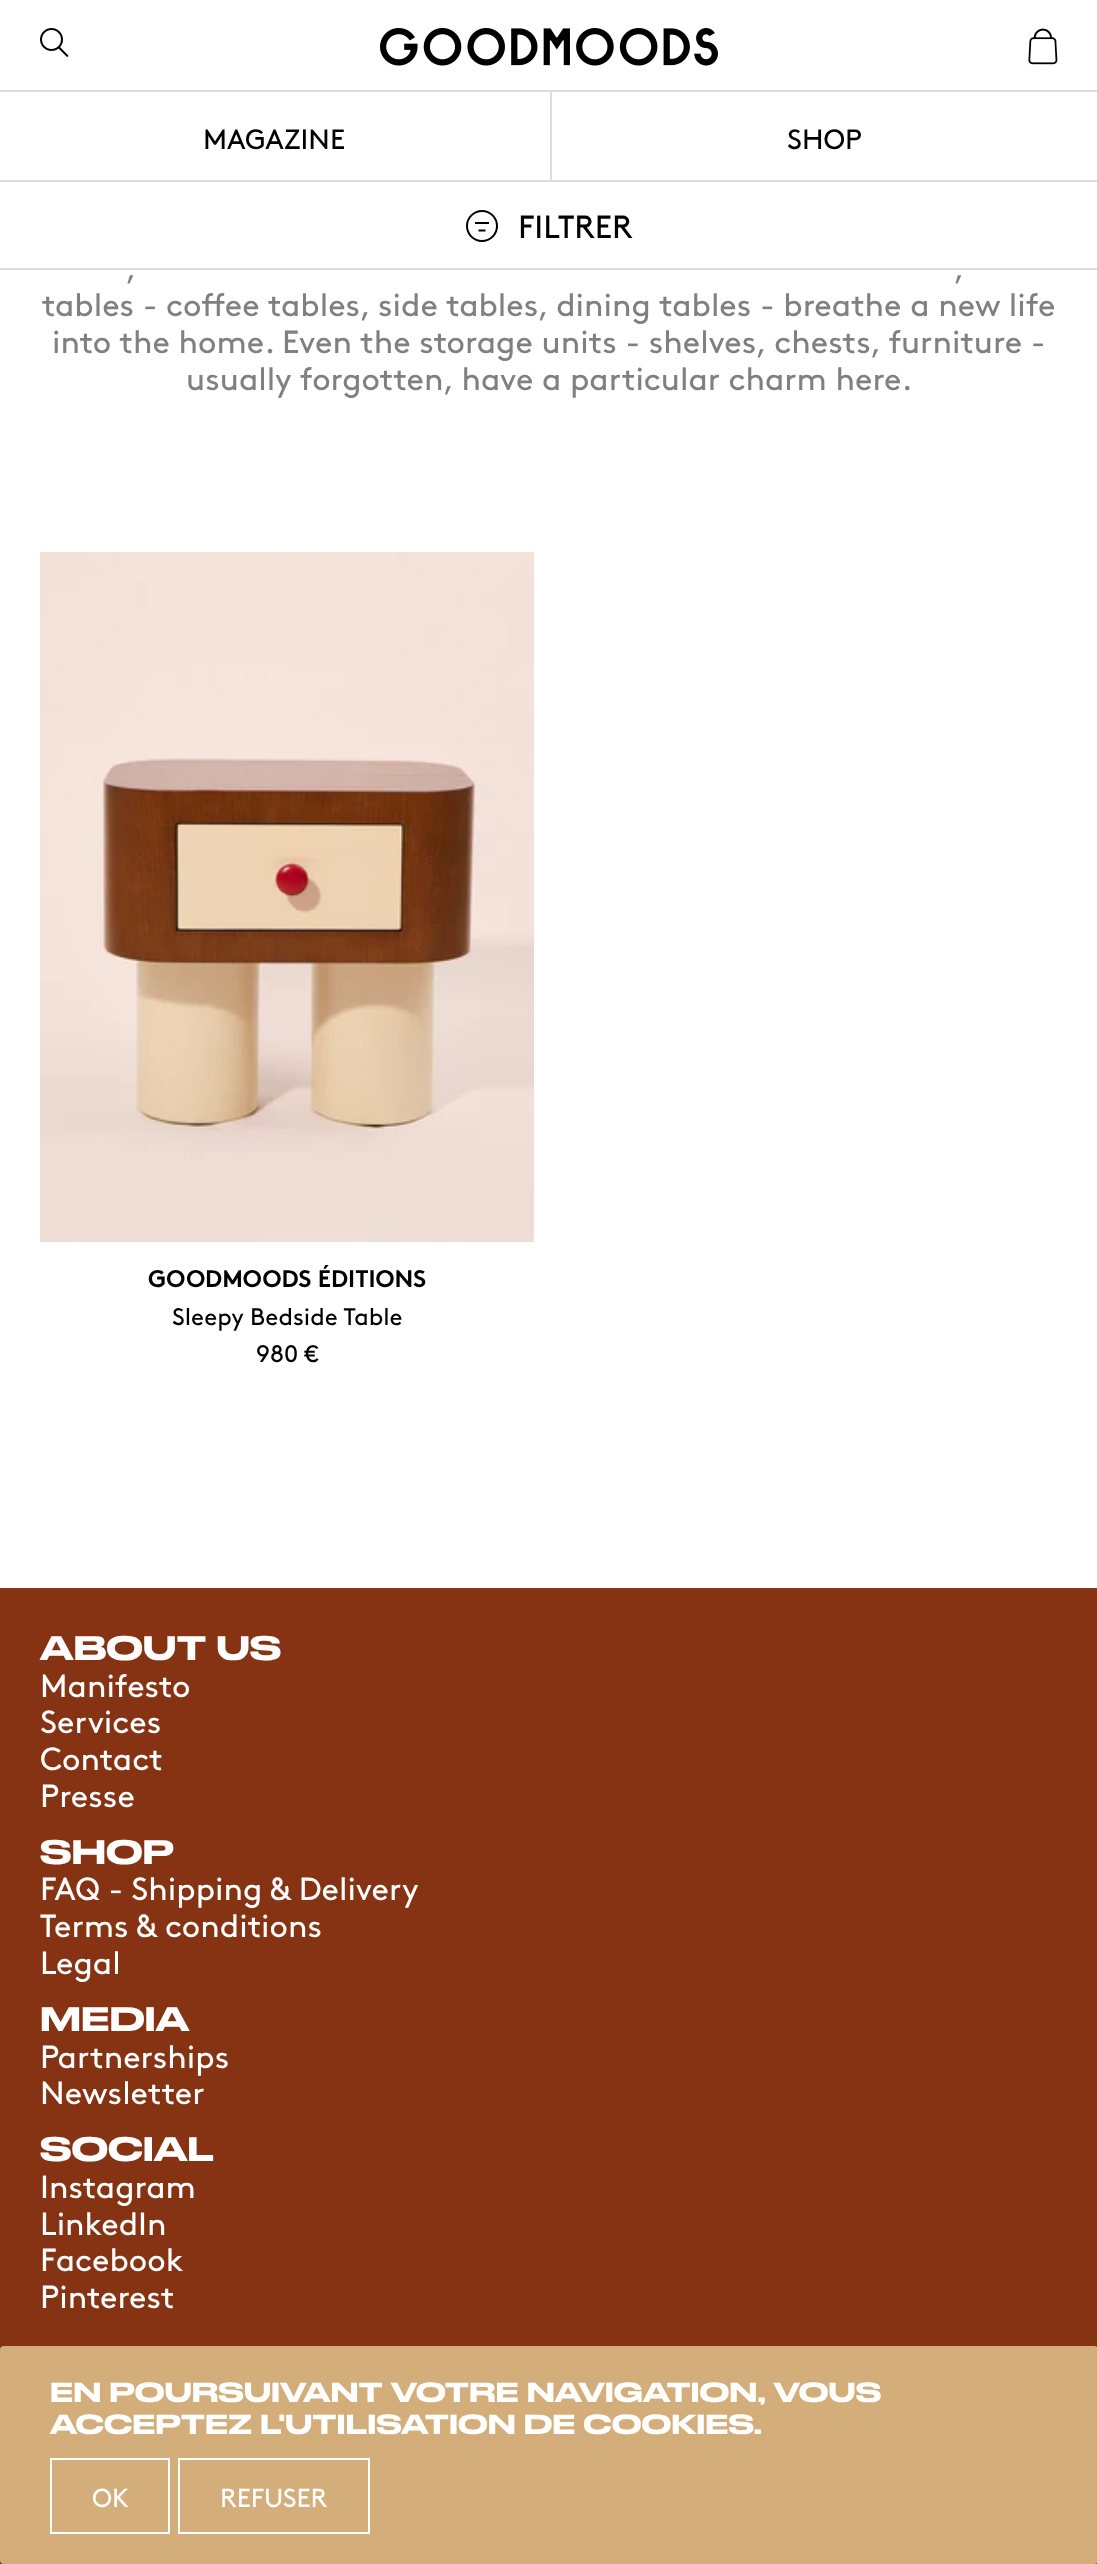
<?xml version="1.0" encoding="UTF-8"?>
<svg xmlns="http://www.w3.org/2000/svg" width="1097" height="2564">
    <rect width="100%" height="100%" fill="#FFFFFF"/>
    <rect x="0" y="180" width="1097" height="2" fill="#DDDDDD"/>
    <image x="40" y="28" width="29" height="29" href="img_01.png"/>
    <image x="380" y="28" width="338" height="38" href="img_02.png"/>
    <image x="1028" y="28" width="30" height="37" href="img_03.png"/>
    <rect x="0" y="90" width="1097" height="2" fill="#DDDDDD"/>
    <text x="203" y="149" font-family="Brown" font-size="28" fill="#000000">MAGAZINE</text>
    <rect x="550" y="92" width="2" height="88" fill="#DDDDDD"/>
    <text x="787" y="149" font-family="Brown" font-size="28" fill="#000000">SHOP</text>
    <rect x="0" y="268" width="1097" height="2" fill="#DDDDDD"/>
    <circle cx="482" cy="226" r="15" fill="none" stroke="#000000" stroke-width="2"/>
    <rect x="475" y="222" width="14" height="2" fill="#000000"/>
    <path d="M 478.5 230.5 H 485.5" fill="none" stroke="#000000" stroke-width="2"/>
    <text x="518" y="238" font-family="Brown" font-size="32" fill="#000000">FILTRER</text>
    <text x="126" y="279" font-family="Brown" font-size="32" fill="#808080">,</text>
    <text x="954" y="279" font-family="Brown" font-size="32" fill="#808080">,</text>
    <text x="42" y="316" font-family="Brown" font-size="32" fill="#808080">tables - coffee tables, side tables, dining tables - breathe a new life</text>
    <text x="52" y="353" font-family="Brown" font-size="32" fill="#808080">into the home. Even the storage units - shelves, chests, furniture -</text>
    <text x="186" y="390" font-family="Brown" font-size="32" fill="#808080">usually forgotten, have a particular charm here.</text>
    <image x="40" y="552" width="494" height="690" href="img_04.png"/>
    <text x="148" y="1287" font-family="Brown" font-size="24" font-weight="700" fill="#000000">GOODMOODS ÉDITIONS</text>
    <text x="172" y="1325" font-family="Brown" font-size="24" fill="#000000">Sleepy Bedside Table</text>
    <text x="256" y="1362" font-family="Brown" font-size="24" fill="#000000">980 €</text>
    <rect x="0" y="1588" width="1097" height="976" fill="#863314"/>
    <text x="40" y="1660" font-family="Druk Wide" font-size="32" font-weight="500" fill="#FFFFFF">ABOUT US</text>
    <text font-family="Brown" font-size="32" fill="#FFFFFF">
        <tspan x="40" y="1697">Manifesto</tspan>
        <tspan x="40" y="1733">Services</tspan>
        <tspan x="40" y="1770">Contact</tspan>
        <tspan x="40" y="1807">Presse</tspan>
    </text>
    <text x="40" y="1864" font-family="Druk Wide" font-size="32" font-weight="500" fill="#FFFFFF">SHOP</text>
    <text font-family="Brown" font-size="32" fill="#FFFFFF">
        <tspan x="40" y="1900">FAQ - Shipping &amp; Delivery</tspan>
        <tspan x="40" y="1937">Terms &amp; conditions</tspan>
        <tspan x="40" y="1974">Legal</tspan>
    </text>
    <text x="40" y="2031" font-family="Druk Wide" font-size="32" font-weight="500" fill="#FFFFFF">MEDIA</text>
    <text font-family="Brown" font-size="32" fill="#FFFFFF">
        <tspan x="40" y="2068">Partnerships</tspan>
        <tspan x="40" y="2104">Newsletter</tspan>
    </text>
    <text x="40" y="2161" font-family="Druk Wide" font-size="32" font-weight="500" fill="#FFFFFF">SOCIAL</text>
    <text font-family="Brown" font-size="32" fill="#FFFFFF">
        <tspan x="40" y="2198">Instagram</tspan>
        <tspan x="40" y="2235">LinkedIn</tspan>
        <tspan x="40" y="2271">Facebook</tspan>
        <tspan x="40" y="2308">Pinterest</tspan>
    </text>
    <rect x="0" y="2346" width="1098" height="218" rx="4" fill="#D3AD7A"/>
    <text font-family="Druk Wide" font-size="26" font-weight="500" fill="#FFFFFF">
        <tspan x="50" y="2402">EN POURSUIVANT VOTRE NAVIGATION, VOUS</tspan>
        <tspan x="50" y="2434">ACCEPTEZ L'UTILISATION DE COOKIES.</tspan>
    </text>
    <rect x="51" y="2459" width="118" height="74" fill="none" stroke="#FFFFFF" stroke-width="2"/>
    <text x="92" y="2507" font-family="Brown" font-size="26" fill="#FFFFFF">OK</text>
    <rect x="179" y="2459" width="190" height="74" fill="none" stroke="#FFFFFF" stroke-width="2"/>
    <text x="220" y="2507" font-family="Brown" font-size="26" fill="#FFFFFF">REFUSER</text>
</svg>
